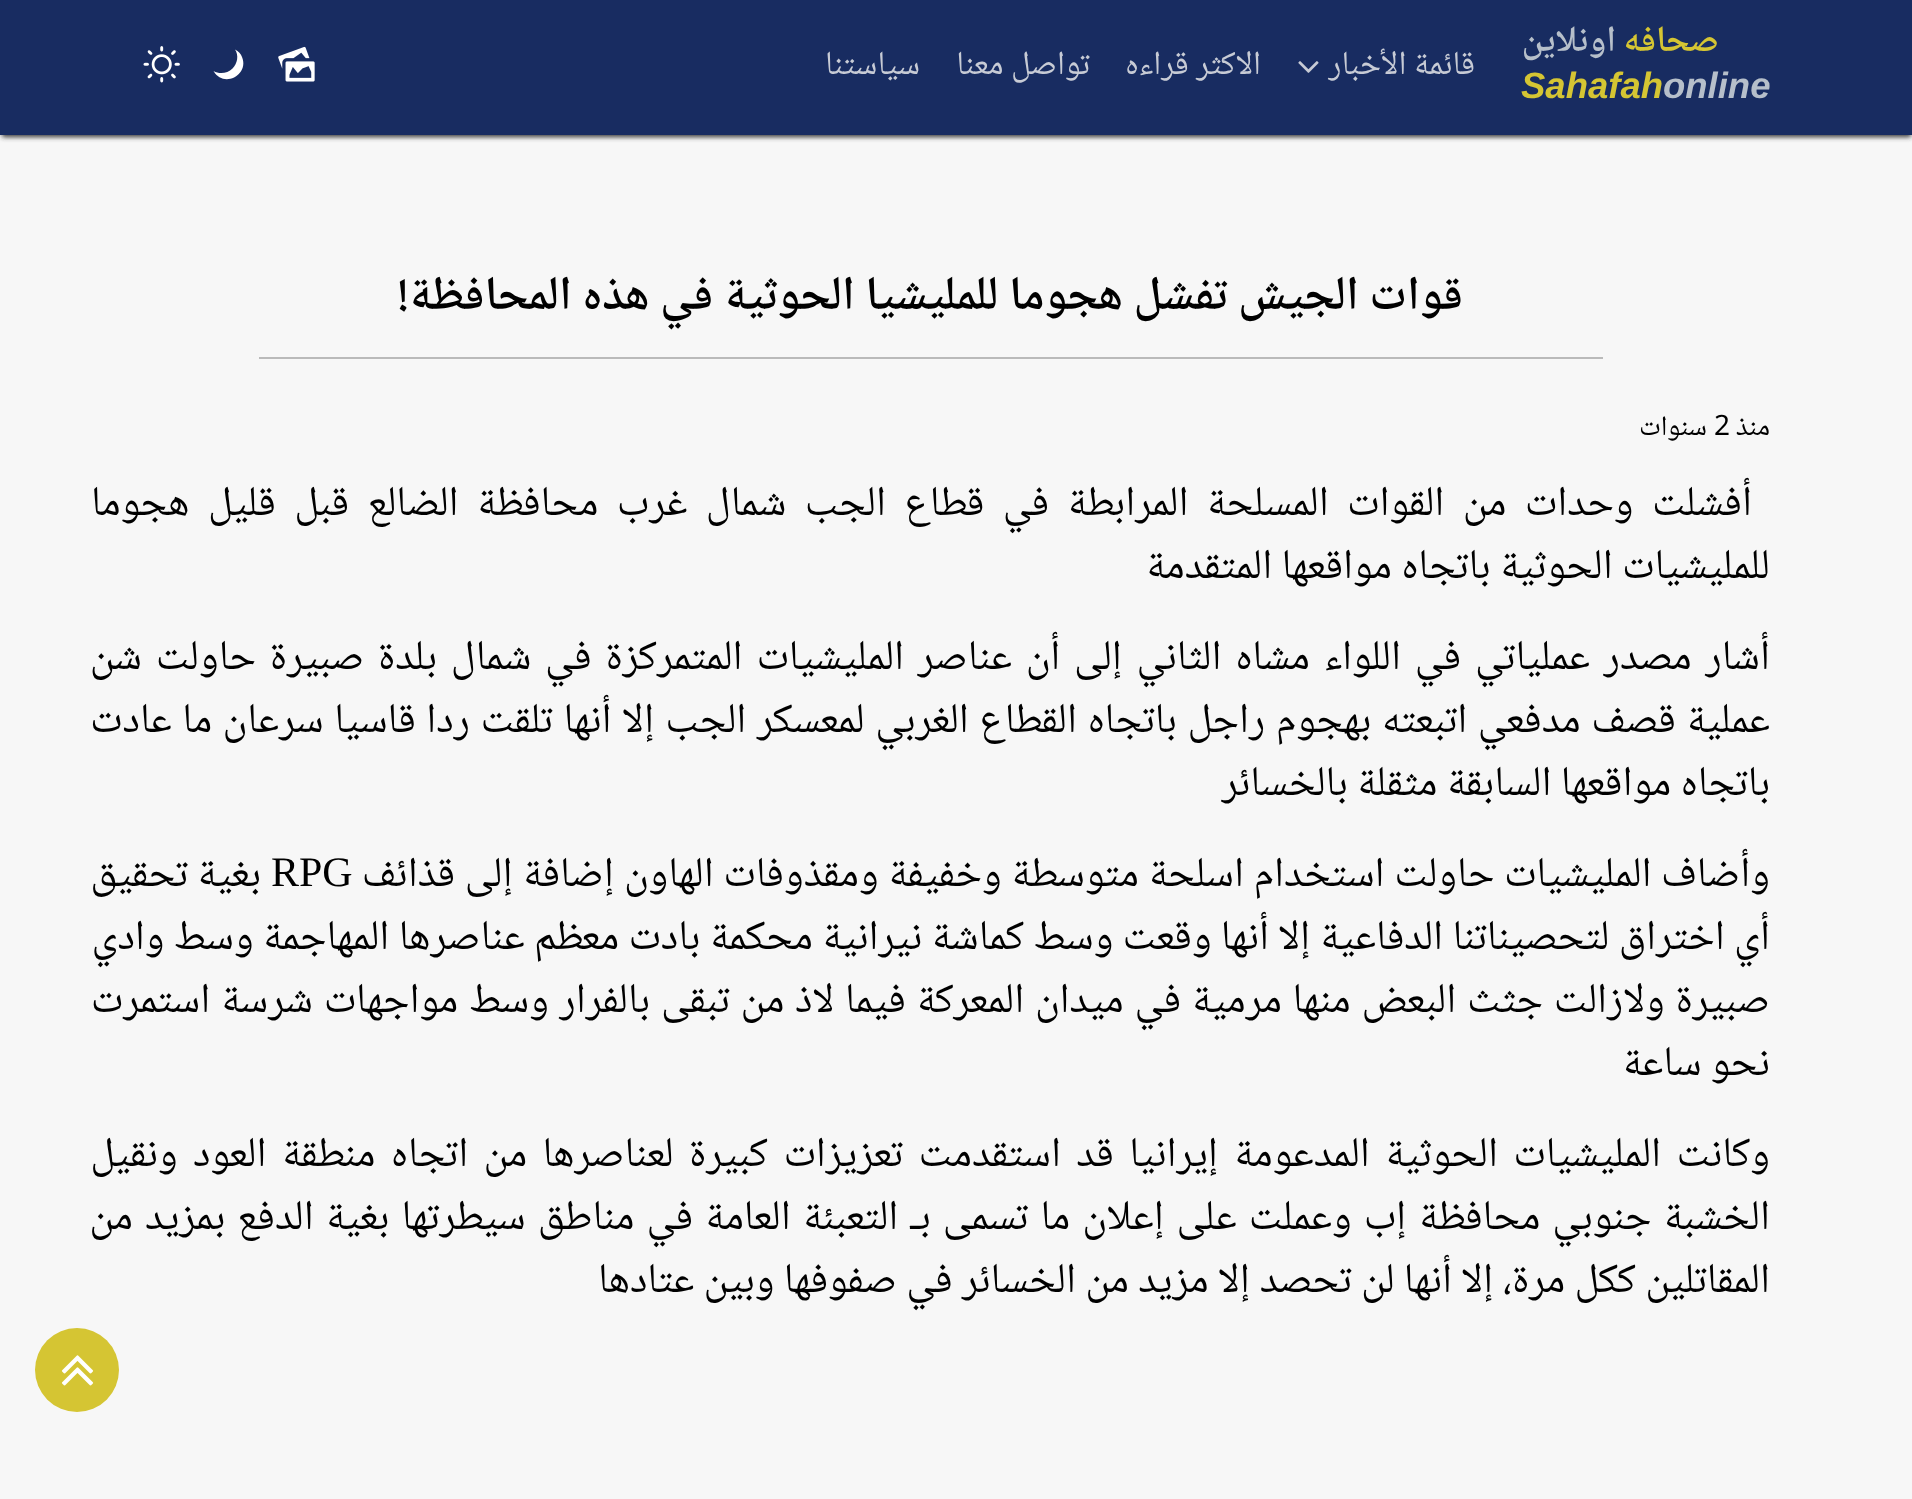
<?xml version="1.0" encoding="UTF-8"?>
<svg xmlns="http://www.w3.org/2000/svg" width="1912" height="1499">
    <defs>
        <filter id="blur1" x="-50%" y="-200%" width="200%" height="500%"><feGaussianBlur stdDeviation="2.5"/></filter>
    </defs>
    <rect width="100%" height="100%" fill="#F7F7F7"/>
    <rect x="2" y="5" width="1909" height="132" fill="#333333" fill-opacity="0.99" filter="url(#blur1)"/>
    <rect x="0" y="0" width="1912" height="135" fill="#182C61"/>
    <text x="1719" y="51" font-family="Noto Naskh Arabic" font-size="36.5" font-weight="600" direction="rtl" fill="#D5C533">صحافه</text>
    <text x="1616" y="51" font-family="Noto Naskh Arabic" font-size="36.5" font-weight="600" direction="rtl" fill="#B6BFCA">اونلاين</text>
    <text x="1663" y="98" font-family="Liberation Sans" font-size="36.5" font-weight="700" font-style="italic" fill="#B6BFCA">online</text>
    <text x="1521" y="98" font-family="Liberation Sans" font-size="36.5" font-weight="700" font-style="italic" fill="#D5C533">Sahafah</text>
    <text x="1475" y="74" font-family="Noto Naskh Arabic" font-size="33.5" direction="rtl" fill="#C7CBD5">قائمة الأخبار</text>
    <image x="1298" y="61" width="21" height="12" href="img_01.png"/>
    <text x="1261" y="74" font-family="Noto Naskh Arabic" font-size="33.5" direction="rtl" fill="#C7CBD5">الاكثر قراءه</text>
    <text x="1090" y="74" font-family="Noto Naskh Arabic" font-size="33.5" direction="rtl" fill="#C7CBD5">تواصل معنا</text>
    <text x="920" y="74" font-family="Noto Naskh Arabic" font-size="33.5" direction="rtl" fill="#C7CBD5">سياستنا</text>
    <image x="278" y="46" width="37" height="36" href="img_02.png"/>
    <path d="M 232.5 68.5 C 237.5 63.5 239 55.5 235 49.5 C 238.5 51 241 54 242 57 C 249.5 75 223.5 88.5 213.5 71 C 219.5 74.5 227.5 73.5 232.5 68.5 Z" fill="#FFFFFF"/>
    <image x="143" y="46" width="37" height="37" href="img_03.png"/>
    <rect x="259" y="357" width="1344" height="2" fill="#BABABA"/>
    <text x="1463" y="309" font-family="Noto Naskh Arabic" font-size="47.6" font-weight="600" direction="rtl" fill="#000000">قوات الجيش تفشل هجوما للمليشيا الحوثية في هذه المحافظة!</text>
    <text x="1770" y="435" font-family="Noto Naskh Arabic" font-size="28" direction="rtl" fill="#000000">منذ</text>
    <text x="1714" y="435" font-family="Noto Naskh Arabic" font-size="28" fill="#000000">2</text>
    <text x="1707" y="435" font-family="Noto Naskh Arabic" font-size="28" direction="rtl" fill="#000000">سنوات</text>
    <text x="1752" y="515" word-spacing="9.1" font-family="Noto Naskh Arabic" font-size="42" direction="rtl" fill="#000000">أفشلت وحدات من القوات المسلحة المرابطة في قطاع الجب شمال غرب محافظة الضالع قبل قليل هجوما</text>
    <text x="1770" y="578" font-family="Noto Naskh Arabic" font-size="42" direction="rtl" fill="#000000">للمليشيات الحوثية باتجاه مواقعها المتقدمة</text>
    <text font-family="Noto Naskh Arabic" font-size="42" direction="rtl" fill="#000000">
        <tspan x="1770" y="669" word-spacing="4.5">أشار مصدر عملياتي في اللواء مشاه الثاني إلى أن عناصر المليشيات المتمركزة في شمال بلدة صبيرة حاولت شن</tspan>
        <tspan x="1770" y="732" word-spacing="1.25">عملية قصف مدفعي اتبعته بهجوم راجل باتجاه القطاع الغربي لمعسكر الجب إلا أنها تلقت ردا قاسيا سرعان ما عادت</tspan>
        <tspan x="1770" y="795">باتجاه مواقعها السابقة مثقلة بالخسائر</tspan>
    </text>
    <text x="1770" y="886" word-spacing="0.25" font-family="Noto Naskh Arabic" font-size="42" direction="rtl" fill="#000000">وأضاف المليشيات حاولت استخدام اسلحة متوسطة وخفيفة ومقذوفات الهاون إضافة إلى قذائف</text>
    <text x="271" y="886" font-family="Liberation Serif" font-size="42" fill="#000000">RPG</text>
    <text x="261" y="886" font-family="Noto Naskh Arabic" font-size="42" direction="rtl" fill="#000000">بغية تحقيق</text>
    <text font-family="Noto Naskh Arabic" font-size="42" direction="rtl" fill="#000000">
        <tspan x="1770" y="949">أي اختراق لتحصيناتنا الدفاعية إلا أنها وقعت وسط كماشة نيرانية محكمة بادت معظم عناصرها المهاجمة وسط وادي</tspan>
        <tspan x="1770" y="1012" word-spacing="1.5">صبيرة ولازالت جثث البعض منها مرمية في ميدان المعركة فيما لاذ من تبقى بالفرار وسط مواجهات شرسة استمرت</tspan>
        <tspan x="1770" y="1075">نحو ساعة</tspan>
    </text>
    <text font-family="Noto Naskh Arabic" font-size="42" direction="rtl" fill="#000000">
        <tspan x="1770" y="1166" word-spacing="6.1">وكانت المليشيات الحوثية المدعومة إيرانيا قد استقدمت تعزيزات كبيرة لعناصرها من اتجاه منطقة العود ونقيل</tspan>
        <tspan x="1770" y="1229" word-spacing="2.75">الخشبة جنوبي محافظة إب وعملت على إعلان ما تسمى بـ التعبئة العامة في مناطق سيطرتها بغية الدفع بمزيد من</tspan>
        <tspan x="1770" y="1292">المقاتلين ككل مرة، إلا أنها لن تحصد إلا مزيد من الخسائر في صفوفها وبين عتادها</tspan>
    </text>
    <circle cx="77" cy="1370" r="42" fill="#D5C533"/>
    <image x="61" y="1355" width="33" height="31" href="img_04.png"/>
</svg>
